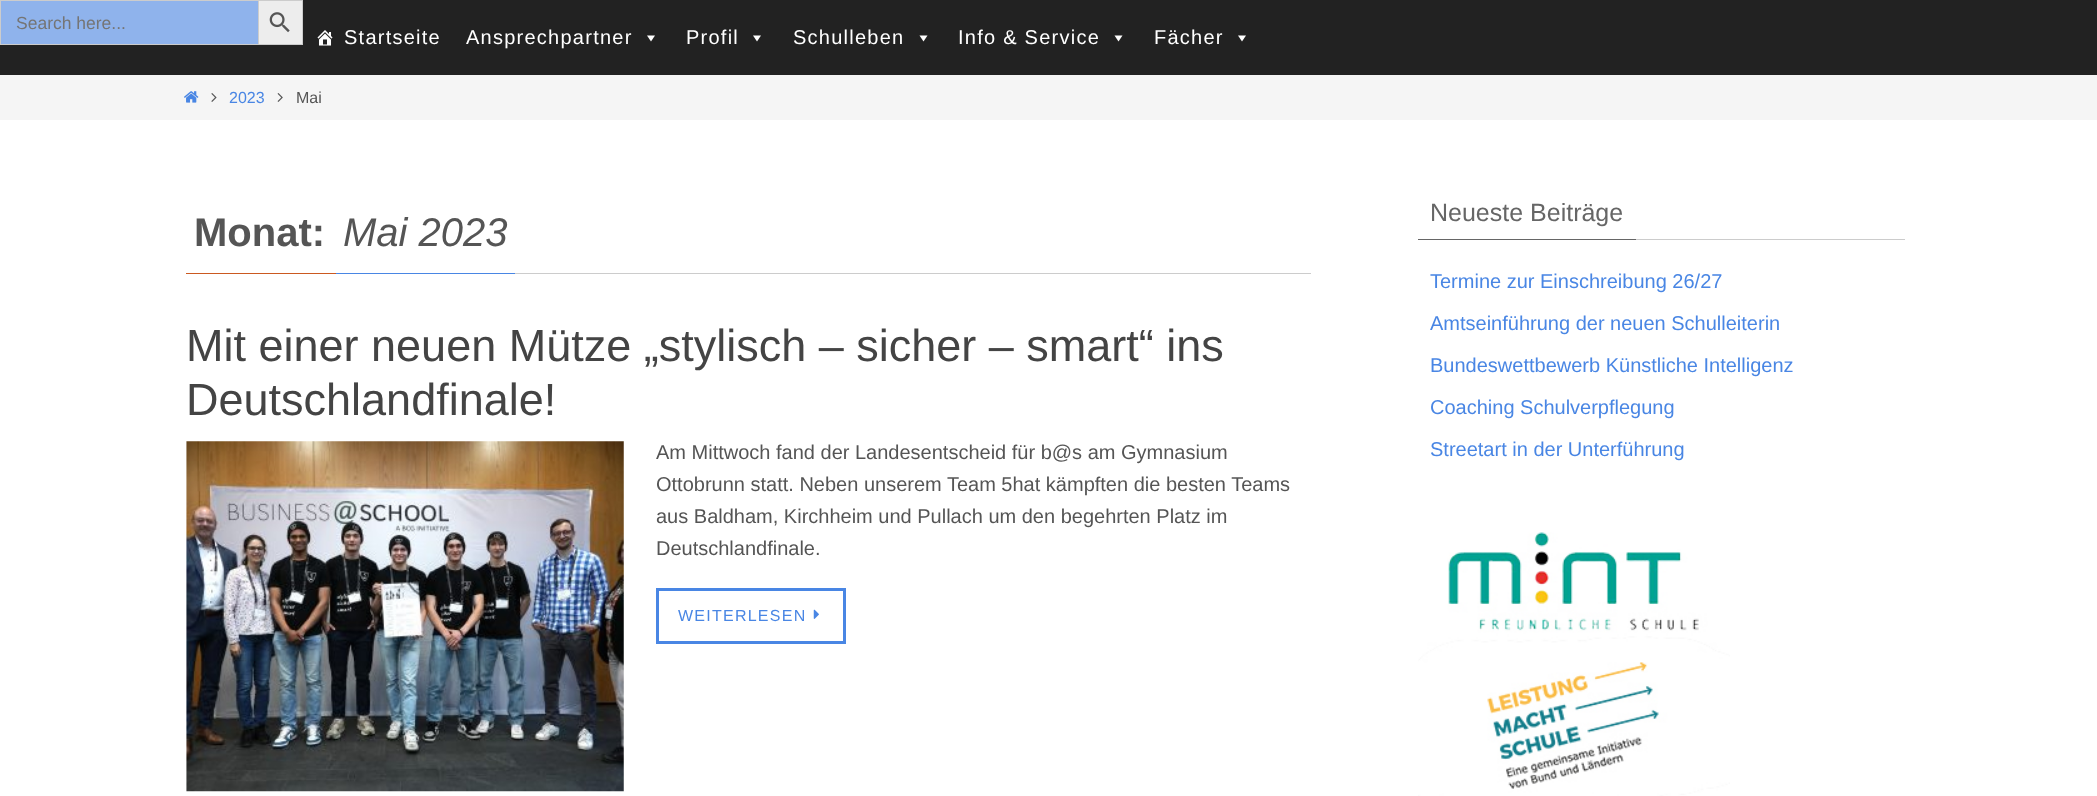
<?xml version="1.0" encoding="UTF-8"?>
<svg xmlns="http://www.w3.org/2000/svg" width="2097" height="796">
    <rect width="100%" height="100%" fill="#FFFFFF"/>
    <rect x="0" y="0" width="2097" height="75" fill="#222222"/>
    <rect x="1" y="1" width="257" height="43" fill="#8FB3EC"/>
    <rect x="0" y="0" width="258" height="1" fill="#CCCCCC"/>
    <rect x="0" y="44" width="258" height="1" fill="#CCCCCC"/>
    <rect x="0" y="0" width="1" height="45" fill="#CCCCCC"/>
    <text x="16" y="29" font-family="Liberation Sans" font-size="17.5" fill="#757575">Search here...</text>
    <rect x="258.5" y="0.5" width="44" height="44" fill="#EDEDED" stroke="#CCCCCC"/>
    <image x="269" y="12" width="21" height="21" href="img_01.png"/>
    <image x="317" y="30" width="16" height="16" href="img_02.png"/>
    <text x="344" y="44" font-family="Liberation Sans" font-size="20" letter-spacing="1.25" fill="#FFFFFF">Startseite</text>
    <text x="466" y="44" font-family="Liberation Sans" font-size="20" letter-spacing="1.25" fill="#FFFFFF">Ansprechpartner</text>
    <path d="M 655 35.5 L 651 41.5 L 647 35.5 Z" fill="#FFFFFF"/>
    <text x="686" y="44" font-family="Liberation Sans" font-size="20" letter-spacing="1.25" fill="#FFFFFF">Profil</text>
    <path d="M 761 35.5 L 757 41.5 L 753 35.5 Z" fill="#FFFFFF"/>
    <text x="793" y="44" font-family="Liberation Sans" font-size="20" letter-spacing="1.25" fill="#FFFFFF">Schulleben</text>
    <path d="M 927.5 35.5 L 923.5 41.5 L 919.5 35.5 Z" fill="#FFFFFF"/>
    <text x="958" y="44" font-family="Liberation Sans" font-size="20" letter-spacing="1.25" fill="#FFFFFF">Info &amp; Service</text>
    <path d="M 1122.5 35.5 L 1118.5 41.5 L 1114.5 35.5 Z" fill="#FFFFFF"/>
    <text x="1154" y="44" font-family="Liberation Sans" font-size="20" letter-spacing="1.25" fill="#FFFFFF">Fächer</text>
    <path d="M 1246 35.5 L 1242 41.5 L 1238 35.5 Z" fill="#FFFFFF"/>
    <rect x="0" y="75" width="2097" height="45" fill="#F5F5F5"/>
    <image x="184" y="91" width="15" height="12" href="img_03.png"/>
    <image x="211" y="93" width="6" height="9" href="img_04.png"/>
    <text x="229" y="103" font-family="Liberation Sans" font-size="16" fill="#4986E4">2023</text>
    <image x="277" y="93" width="6" height="9" href="img_05.png"/>
    <text x="296" y="103" font-family="Liberation Sans" font-size="16" fill="#555555">Mai</text>
    <rect x="515" y="273" width="796" height="1" fill="#CCCCCC"/>
    <rect x="186" y="273" width="150" height="1" fill="#CB5920"/>
    <text x="194" y="246" font-family="Liberation Sans" font-size="40" font-weight="700" fill="#555555">Monat:</text>
    <rect x="336" y="273" width="179" height="1" fill="#4986E4"/>
    <text x="343" y="246" font-family="Liberation Sans" font-size="40" font-style="italic" fill="#555555">Mai 2023</text>
    <text font-family="Liberation Sans" font-size="45" fill="#444444">
        <tspan x="186" y="361">Mit einer neuen Mütze „stylisch – sicher – smart“ ins</tspan>
        <tspan x="186" y="415">Deutschlandfinale!</tspan>
    </text>
    <image x="186" y="441" width="438" height="351" href="img_06.png"/>
    <text font-family="Liberation Sans" font-size="20" fill="#555555">
        <tspan x="656" y="459">Am Mittwoch fand der Landesentscheid für b@s am Gymnasium</tspan>
        <tspan x="656" y="491">Ottobrunn statt. Neben unserem Team 5hat kämpften die besten Teams</tspan>
        <tspan x="656" y="523">aus Baldham, Kirchheim und Pullach um den begehrten Platz im</tspan>
        <tspan x="656" y="555">Deutschlandfinale.</tspan>
    </text>
    <rect x="657.5" y="589.5" width="187" height="53" fill="none" stroke="#4986E4" stroke-width="3"/>
    <text x="678" y="621" font-family="Liberation Sans" font-size="16" letter-spacing="1.25" fill="#4986E4">WEITERLESEN</text>
    <image x="813" y="609" width="6" height="10" href="img_07.png"/>
    <rect x="1636" y="239" width="269" height="1" fill="#CCCCCC"/>
    <rect x="1418" y="239" width="218" height="1" fill="#666666"/>
    <text x="1430" y="221" font-family="Liberation Sans" font-size="25" fill="#666666">Neueste Beiträge</text>
    <text x="1430" y="288" font-family="Liberation Sans" font-size="20" fill="#4986E4">Termine zur Einschreibung 26/27</text>
    <text x="1430" y="330" font-family="Liberation Sans" font-size="20" fill="#4986E4">Amtseinführung der neuen Schulleiterin</text>
    <text x="1430" y="372" font-family="Liberation Sans" font-size="20" fill="#4986E4">Bundeswettbewerb Künstliche Intelligenz</text>
    <text x="1430" y="414" font-family="Liberation Sans" font-size="20" fill="#4986E4">Coaching Schulverpflegung</text>
    <text x="1430" y="456" font-family="Liberation Sans" font-size="20" fill="#4986E4">Streetart in der Unterführung</text>
    <image x="1418" y="532" width="312" height="264" href="img_08.png"/>
</svg>
